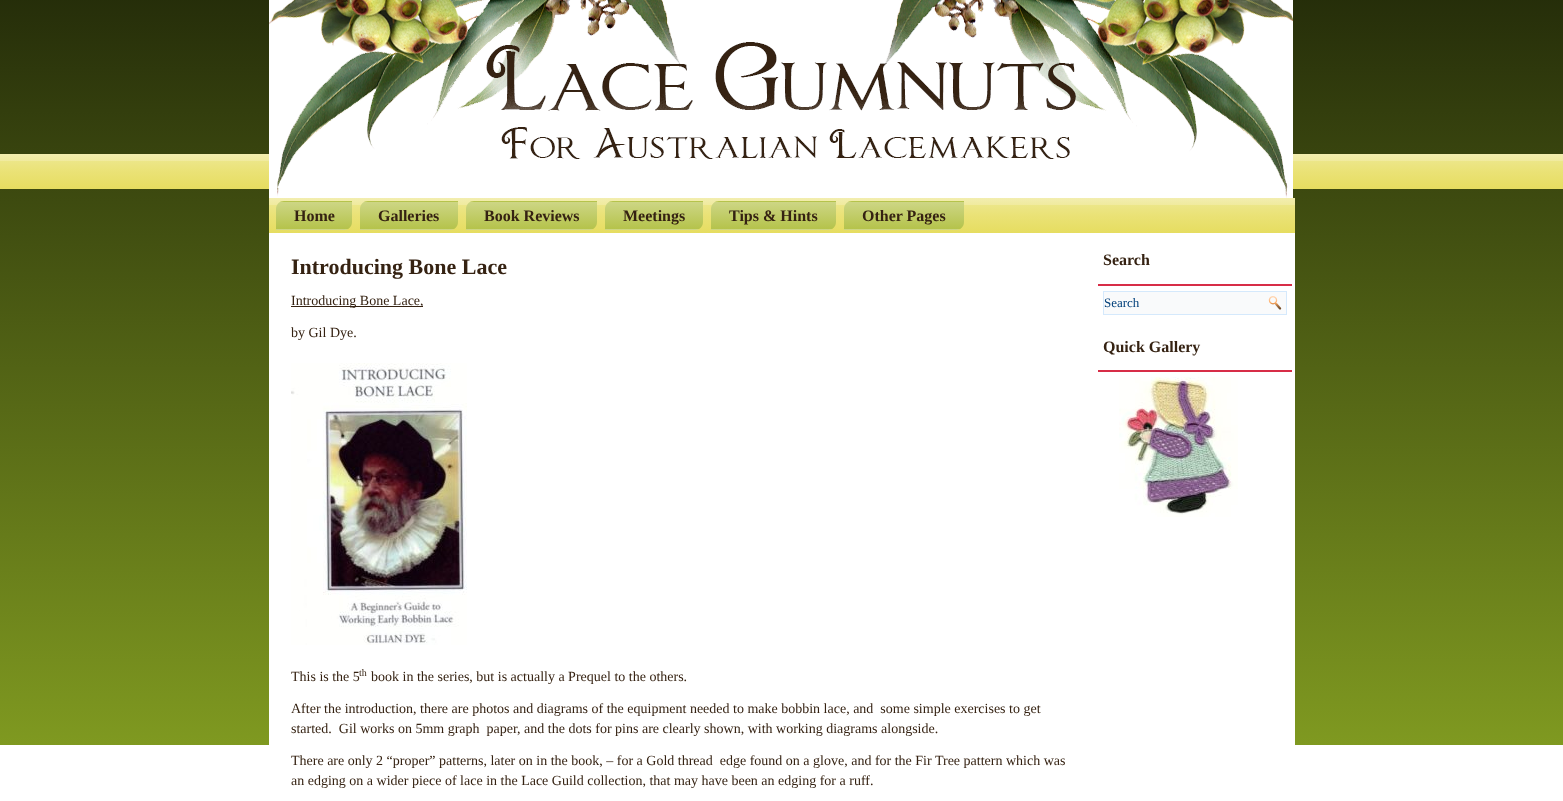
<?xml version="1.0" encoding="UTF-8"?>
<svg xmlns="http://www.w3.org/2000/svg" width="1563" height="801">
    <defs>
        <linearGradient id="g1" gradientUnits="userSpaceOnUse" x1="782" y1="-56" x2="782" y2="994"><stop offset="0" stop-color="#1F2608"/><stop offset="1" stop-color="#9DBD28"/></linearGradient>
        <linearGradient id="g2" gradientUnits="userSpaceOnUse" x1="782" y1="154" x2="782" y2="189"><stop offset="0" stop-color="#F3EEB0"/><stop offset="0.1" stop-color="#F1ECA7"/><stop offset="0.2" stop-color="#F0EA9E"/><stop offset="0.2" stop-color="#ECE688"/><stop offset="0.5" stop-color="#EAE276"/><stop offset="1" stop-color="#E6DD60"/></linearGradient>
        <linearGradient id="g3" gradientUnits="userSpaceOnUse" x1="782" y1="198" x2="782" y2="233"><stop offset="0" stop-color="#F3EEB0"/><stop offset="0.1" stop-color="#F1ECA7"/><stop offset="0.2" stop-color="#F0EA9E"/><stop offset="0.2" stop-color="#ECE688"/><stop offset="0.5" stop-color="#EAE276"/><stop offset="1" stop-color="#E6DD60"/></linearGradient>
        <clipPath id="clip1"><path d="M 284 201 H 352 V 222 C 352 226.5 348.5 230 344 230 H 276 V 209 C 276 204.5 279.5 201 284 201 Z"/></clipPath>
        <linearGradient id="g4" gradientUnits="userSpaceOnUse" x1="314" y1="175" x2="314" y2="202"><stop offset="0" stop-color="#CDD685"/><stop offset="1" stop-color="#B5C34B"/></linearGradient>
        <linearGradient id="g5" gradientUnits="userSpaceOnUse" x1="314" y1="202" x2="314" y2="229"><stop offset="0" stop-color="#CDD685"/><stop offset="1" stop-color="#B5C34B"/></linearGradient>
        <linearGradient id="g6" gradientUnits="userSpaceOnUse" x1="314" y1="229" x2="314" y2="256"><stop offset="0" stop-color="#CDD685"/><stop offset="1" stop-color="#B5C34B"/></linearGradient>
        <clipPath id="clip2"><path d="M 368 201 H 458 V 222 C 458 226.5 454.5 230 450 230 H 360 V 209 C 360 204.5 363.5 201 368 201 Z"/></clipPath>
        <linearGradient id="g7" gradientUnits="userSpaceOnUse" x1="409" y1="175" x2="409" y2="202"><stop offset="0" stop-color="#CDD685"/><stop offset="1" stop-color="#B5C34B"/></linearGradient>
        <linearGradient id="g8" gradientUnits="userSpaceOnUse" x1="409" y1="202" x2="409" y2="229"><stop offset="0" stop-color="#CDD685"/><stop offset="1" stop-color="#B5C34B"/></linearGradient>
        <linearGradient id="g9" gradientUnits="userSpaceOnUse" x1="409" y1="229" x2="409" y2="256"><stop offset="0" stop-color="#CDD685"/><stop offset="1" stop-color="#B5C34B"/></linearGradient>
        <clipPath id="clip3"><path d="M 474 201 H 597 V 222 C 597 226.5 593.5 230 589 230 H 466 V 209 C 466 204.5 469.5 201 474 201 Z"/></clipPath>
        <linearGradient id="g10" gradientUnits="userSpaceOnUse" x1="532" y1="175" x2="532" y2="202"><stop offset="0" stop-color="#CDD685"/><stop offset="1" stop-color="#B5C34B"/></linearGradient>
        <linearGradient id="g11" gradientUnits="userSpaceOnUse" x1="532" y1="202" x2="532" y2="229"><stop offset="0" stop-color="#CDD685"/><stop offset="1" stop-color="#B5C34B"/></linearGradient>
        <linearGradient id="g12" gradientUnits="userSpaceOnUse" x1="532" y1="229" x2="532" y2="256"><stop offset="0" stop-color="#CDD685"/><stop offset="1" stop-color="#B5C34B"/></linearGradient>
        <clipPath id="clip4"><path d="M 613 201 H 703 V 222 C 703 226.5 699.5 230 695 230 H 605 V 209 C 605 204.5 608.5 201 613 201 Z"/></clipPath>
        <linearGradient id="g13" gradientUnits="userSpaceOnUse" x1="654" y1="175" x2="654" y2="202"><stop offset="0" stop-color="#CDD685"/><stop offset="1" stop-color="#B5C34B"/></linearGradient>
        <linearGradient id="g14" gradientUnits="userSpaceOnUse" x1="654" y1="202" x2="654" y2="229"><stop offset="0" stop-color="#CDD685"/><stop offset="1" stop-color="#B5C34B"/></linearGradient>
        <linearGradient id="g15" gradientUnits="userSpaceOnUse" x1="654" y1="229" x2="654" y2="256"><stop offset="0" stop-color="#CDD685"/><stop offset="1" stop-color="#B5C34B"/></linearGradient>
        <clipPath id="clip5"><path d="M 719 201 H 836 V 222 C 836 226.5 832.5 230 828 230 H 711 V 209 C 711 204.5 714.5 201 719 201 Z"/></clipPath>
        <linearGradient id="g16" gradientUnits="userSpaceOnUse" x1="774" y1="175" x2="774" y2="202"><stop offset="0" stop-color="#CDD685"/><stop offset="1" stop-color="#B5C34B"/></linearGradient>
        <linearGradient id="g17" gradientUnits="userSpaceOnUse" x1="774" y1="202" x2="774" y2="229"><stop offset="0" stop-color="#CDD685"/><stop offset="1" stop-color="#B5C34B"/></linearGradient>
        <linearGradient id="g18" gradientUnits="userSpaceOnUse" x1="774" y1="229" x2="774" y2="256"><stop offset="0" stop-color="#CDD685"/><stop offset="1" stop-color="#B5C34B"/></linearGradient>
        <clipPath id="clip6"><path d="M 852 201 H 964 V 222 C 964 226.5 960.5 230 956 230 H 844 V 209 C 844 204.5 847.5 201 852 201 Z"/></clipPath>
        <linearGradient id="g19" gradientUnits="userSpaceOnUse" x1="904" y1="175" x2="904" y2="202"><stop offset="0" stop-color="#CDD685"/><stop offset="1" stop-color="#B5C34B"/></linearGradient>
        <linearGradient id="g20" gradientUnits="userSpaceOnUse" x1="904" y1="202" x2="904" y2="229"><stop offset="0" stop-color="#CDD685"/><stop offset="1" stop-color="#B5C34B"/></linearGradient>
        <linearGradient id="g21" gradientUnits="userSpaceOnUse" x1="904" y1="229" x2="904" y2="256"><stop offset="0" stop-color="#CDD685"/><stop offset="1" stop-color="#B5C34B"/></linearGradient>
    </defs>
    <rect width="100%" height="100%" fill="#FFFFFF"/>
    <rect x="0" y="0" width="1563" height="745" fill="url(#g1)"/>
    <rect x="0" y="154" width="1563" height="35" fill="url(#g2)"/>
    <image x="269" y="0" width="1024" height="198" href="img_01.png"/>
    <rect x="269" y="233" width="1026" height="512" fill="#FFFFFF"/>
    <rect x="269" y="198" width="1026" height="35" fill="url(#g3)"/>
    <g clip-path="url(#clip1)">
        <rect x="276" y="201" width="76" height="1" fill="url(#g4)"/>
        <rect x="276" y="202" width="76" height="27" fill="url(#g5)"/>
        <rect x="276" y="229" width="76" height="1" fill="url(#g6)"/>
    </g>
    <text x="294" y="221" font-family="Liberation Serif" font-size="16" font-weight="700" fill="#352212">Home</text>
    <g clip-path="url(#clip2)">
        <rect x="360" y="201" width="98" height="1" fill="url(#g7)"/>
        <rect x="360" y="202" width="98" height="27" fill="url(#g8)"/>
        <rect x="360" y="229" width="98" height="1" fill="url(#g9)"/>
    </g>
    <text x="378" y="221" font-family="Liberation Serif" font-size="16" font-weight="700" fill="#352212">Galleries</text>
    <g clip-path="url(#clip3)">
        <rect x="466" y="201" width="131" height="1" fill="url(#g10)"/>
        <rect x="466" y="202" width="131" height="27" fill="url(#g11)"/>
        <rect x="466" y="229" width="131" height="1" fill="url(#g12)"/>
    </g>
    <text x="484" y="221" font-family="Liberation Serif" font-size="16" font-weight="700" fill="#352212">Book Reviews</text>
    <g clip-path="url(#clip4)">
        <rect x="605" y="201" width="98" height="1" fill="url(#g13)"/>
        <rect x="605" y="202" width="98" height="27" fill="url(#g14)"/>
        <rect x="605" y="229" width="98" height="1" fill="url(#g15)"/>
    </g>
    <text x="623" y="221" font-family="Liberation Serif" font-size="16" font-weight="700" fill="#352212">Meetings</text>
    <g clip-path="url(#clip5)">
        <rect x="711" y="201" width="125" height="1" fill="url(#g16)"/>
        <rect x="711" y="202" width="125" height="27" fill="url(#g17)"/>
        <rect x="711" y="229" width="125" height="1" fill="url(#g18)"/>
    </g>
    <text x="729" y="221" font-family="Liberation Serif" font-size="16" font-weight="700" fill="#352212">Tips &amp; Hints</text>
    <g clip-path="url(#clip6)">
        <rect x="844" y="201" width="120" height="1" fill="url(#g19)"/>
        <rect x="844" y="202" width="120" height="27" fill="url(#g20)"/>
        <rect x="844" y="229" width="120" height="1" fill="url(#g21)"/>
    </g>
    <text x="862" y="221" font-family="Liberation Serif" font-size="16" font-weight="700" fill="#352212">Other Pages</text>
    <text x="291" y="274" font-family="Liberation Serif" font-size="22" font-weight="700" fill="#352212">Introducing Bone Lace</text>
    <rect x="291" y="306" width="132" height="1" fill="#352212"/>
    <text x="291" y="305" font-family="Liberation Serif" font-size="14" fill="#352212">Introducing Bone Lace,</text>
    <text x="291" y="337" font-family="Liberation Serif" font-size="14" fill="#352212">by Gil Dye.</text>
    <image x="291" y="363" width="176" height="282" href="img_02.png"/>
    <text x="291" y="681" font-family="Liberation Serif" font-size="14" fill="#352212">This is the 5</text>
    <text x="359" y="676" font-family="Liberation Serif" font-size="10" fill="#352212">th</text>
    <text x="371" y="681" font-family="Liberation Serif" font-size="14" fill="#352212">book in the series, but is actually a Prequel to the others.</text>
    <text font-family="Liberation Serif" font-size="14" fill="#352212" xml:space="preserve"><tspan x="291" y="713">After the introduction, there are photos and diagrams of the equipment needed to make bobbin lace, and  some simple exercises to get</tspan><tspan x="291" y="733">started.  Gil works on 5mm graph  paper, and the dots for pins are clearly shown, with working diagrams alongside.</tspan></text>
    <text font-family="Liberation Serif" font-size="14" fill="#352212" xml:space="preserve"><tspan x="291" y="765">There are only 2 “proper” patterns, later on in the book, – for a Gold thread  edge found on a glove, and for the Fir Tree pattern which was</tspan><tspan x="291" y="785">an edging on a wider piece of lace in the Lace Guild collection, that may have been an edging for a ruff.</tspan></text>
    <rect x="1098" y="284" width="194" height="2" fill="#D72D47"/>
    <text x="1103" y="265" font-family="Liberation Serif" font-size="16" font-weight="700" fill="#352212">Search</text>
    <rect x="1103.5" y="291.5" width="183" height="23" fill="#F9FAFB" stroke="#D5E9FC"/>
    <text x="1104" y="307" font-family="Liberation Serif" font-size="13" fill="#003F7A">Search</text>
    <image x="1268" y="296" width="14" height="14" href="img_03.png"/>
    <rect x="1098" y="370" width="194" height="2" fill="#D72D47"/>
    <text x="1103" y="352" font-family="Liberation Serif" font-size="16" font-weight="700" fill="#352212">Quick Gallery</text>
    <image x="1119" y="377" width="119" height="140" href="img_04.png"/>
</svg>
